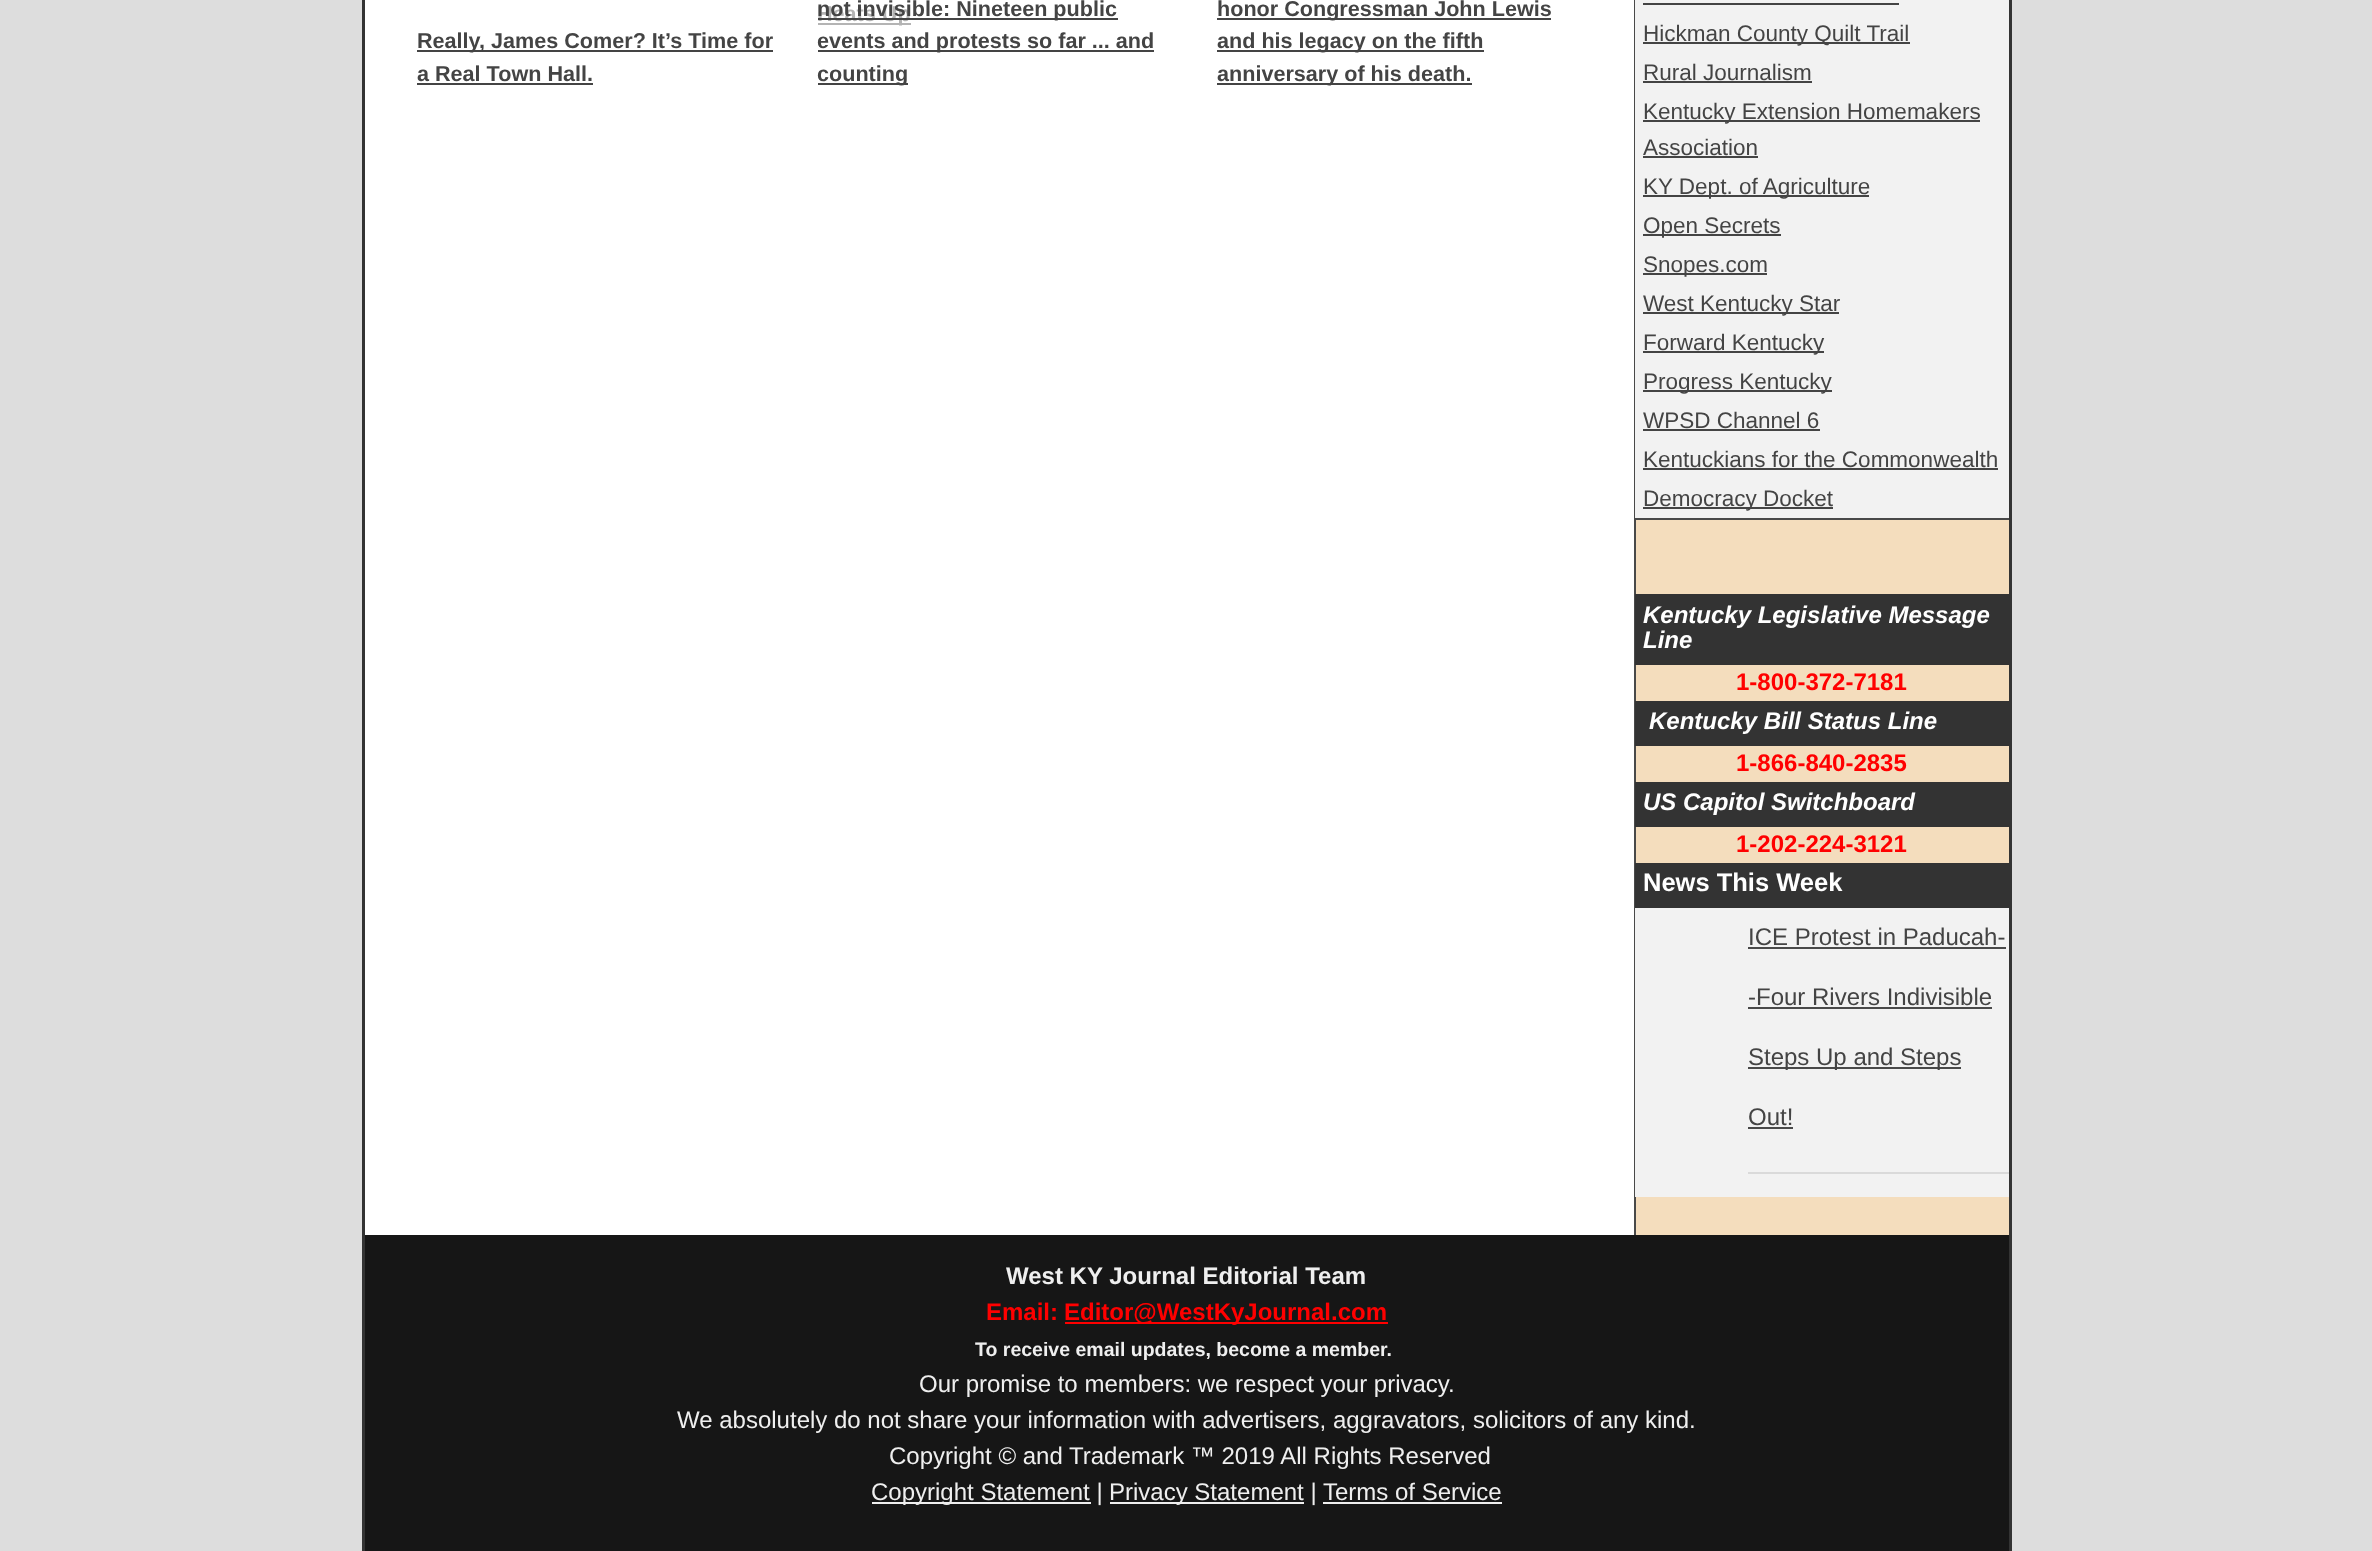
<?xml version="1.0" encoding="UTF-8"?>
<svg xmlns="http://www.w3.org/2000/svg" width="2372" height="1551">
    <rect width="100%" height="100%" fill="#DDDDDD"/>
    <rect x="365" y="0" width="1269" height="1235" fill="#FFFFFF"/>
    <rect x="363.5" y="-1.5" width="1647" height="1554" fill="none" stroke="#333333" stroke-width="3"/>
    <rect x="818" y="23" width="93" height="2" fill="#B4B4B4"/>
    <text x="817" y="21" font-family="Liberation Sans" font-size="21.6" font-weight="700" fill="#B4B4B4">Heats Up</text>
    <rect x="818" y="18" width="300" height="2" fill="#444444"/>
    <text x="817" y="16" font-family="Liberation Sans" font-size="21.6" font-weight="700" fill="#444444">not invisible: Nineteen public</text>
    <rect x="818" y="50" width="336" height="2" fill="#444444"/>
    <text x="817" y="48" font-family="Liberation Sans" font-size="21.6" font-weight="700" fill="#444444">events and protests so far ... and</text>
    <rect x="818" y="83" width="90" height="2" fill="#444444"/>
    <text x="817" y="81" font-family="Liberation Sans" font-size="21.6" font-weight="700" fill="#444444">counting</text>
    <rect x="1217" y="18" width="334" height="2" fill="#444444"/>
    <text x="1217" y="16" font-family="Liberation Sans" font-size="21.6" font-weight="700" fill="#444444">honor Congressman John Lewis</text>
    <rect x="1217" y="50" width="267" height="2" fill="#444444"/>
    <text x="1217" y="48" font-family="Liberation Sans" font-size="21.6" font-weight="700" fill="#444444">and his legacy on the fifth</text>
    <rect x="1217" y="83" width="255" height="2" fill="#444444"/>
    <text x="1217" y="81" font-family="Liberation Sans" font-size="21.6" font-weight="700" fill="#444444">anniversary of his death.</text>
    <rect x="417" y="50" width="356" height="2" fill="#444444"/>
    <text font-family="Liberation Sans" font-size="21.6" font-weight="700" fill="#444444">
        <tspan x="417" y="48">Really, James Comer? It’s Time for</tspan>
        <tspan x="417" y="81">a Real Town Hall.</tspan>
    </text>
    <rect x="417" y="83" width="176" height="2" fill="#444444"/>
    <rect x="1636" y="520" width="373" height="715" fill="#F4DDBD"/>
    <rect x="1634" y="0" width="2" height="1235" fill="#494949"/>
    <rect x="1635" y="0" width="374" height="518" fill="#F2F2F2"/>
    <rect x="1635" y="518" width="374" height="2" fill="#494949"/>
    <rect x="1643" y="3" width="256" height="2" fill="#444444"/>
    <rect x="1643" y="42" width="267" height="2" fill="#444444"/>
    <text font-family="Liberation Sans" font-size="22.5" fill="#444444">
        <tspan x="1643" y="41">Hickman County Quilt Trail</tspan>
        <tspan x="1643" y="80">Rural Journalism</tspan>
    </text>
    <rect x="1643" y="81" width="169" height="2" fill="#444444"/>
    <rect x="1643" y="120" width="337" height="2" fill="#444444"/>
    <text font-family="Liberation Sans" font-size="22.5" fill="#444444">
        <tspan x="1643" y="119">Kentucky Extension Homemakers</tspan>
        <tspan x="1643" y="155">Association</tspan>
    </text>
    <rect x="1643" y="156" width="115" height="2" fill="#444444"/>
    <rect x="1643" y="195" width="226" height="2" fill="#444444"/>
    <text x="1643" y="194" font-family="Liberation Sans" font-size="22.5" fill="#444444">KY Dept. of Agriculture</text>
    <rect x="1643" y="234" width="138" height="2" fill="#444444"/>
    <text x="1643" y="233" font-family="Liberation Sans" font-size="22.5" fill="#444444">Open Secrets</text>
    <rect x="1643" y="273" width="124" height="2" fill="#444444"/>
    <text x="1643" y="272" font-family="Liberation Sans" font-size="22.5" fill="#444444">Snopes.com</text>
    <rect x="1643" y="312" width="196" height="2" fill="#444444"/>
    <text x="1643" y="311" font-family="Liberation Sans" font-size="22.5" fill="#444444">West Kentucky Star</text>
    <rect x="1643" y="351" width="181" height="2" fill="#444444"/>
    <text x="1643" y="350" font-family="Liberation Sans" font-size="22.5" fill="#444444">Forward Kentucky</text>
    <rect x="1643" y="390" width="189" height="2" fill="#444444"/>
    <text font-family="Liberation Sans" font-size="22.5" fill="#444444">
        <tspan x="1643" y="389">Progress Kentucky</tspan>
        <tspan x="1643" y="428">WPSD Channel 6</tspan>
    </text>
    <rect x="1643" y="429" width="177" height="2" fill="#444444"/>
    <text x="1643" y="467" font-family="Liberation Sans" font-size="22.5" fill="#444444">Kentuckians for the Commonwealth</text>
    <rect x="1643" y="468" width="355" height="2" fill="#444444"/>
    <rect x="1643" y="507" width="190" height="2" fill="#444444"/>
    <text x="1643" y="506" font-family="Liberation Sans" font-size="22.5" fill="#444444">Democracy Docket</text>
    <rect x="1635" y="594" width="374" height="71" fill="#333333"/>
    <text font-family="Liberation Sans" font-size="24" font-weight="700" font-style="italic" fill="#FFFFFF">
        <tspan x="1643" y="623">Kentucky Legislative Message</tspan>
        <tspan x="1643" y="648">Line</tspan>
    </text>
    <text x="1736" y="690" font-family="Liberation Sans" font-size="24" font-weight="700" fill="#FF0000">1-800-372-7181</text>
    <rect x="1635" y="701" width="374" height="45" fill="#333333"/>
    <text x="1649" y="729" font-family="Liberation Sans" font-size="24" font-weight="700" font-style="italic" fill="#FFFFFF">Kentucky Bill Status Line</text>
    <text x="1736" y="771" font-family="Liberation Sans" font-size="24" font-weight="700" fill="#FF0000">1-866-840-2835</text>
    <rect x="1635" y="782" width="374" height="45" fill="#333333"/>
    <text x="1643" y="810" font-family="Liberation Sans" font-size="24" font-weight="700" font-style="italic" fill="#FFFFFF">US Capitol Switchboard</text>
    <text x="1736" y="852" font-family="Liberation Sans" font-size="24" font-weight="700" fill="#FF0000">1-202-224-3121</text>
    <rect x="1635" y="863" width="374" height="45" fill="#333333"/>
    <text x="1643" y="891" font-family="Liberation Sans" font-size="25.5" font-weight="700" fill="#FFFFFF">News This Week</text>
    <rect x="1635" y="908" width="374" height="289" fill="#F2F2F2"/>
    <text x="1748" y="945" font-family="Liberation Sans" font-size="24" fill="#444444">ICE Protest in Paducah-</text>
    <rect x="1748" y="947" width="258" height="2" fill="#494949"/>
    <text x="1748" y="1005" font-family="Liberation Sans" font-size="24" fill="#444444">-Four Rivers Indivisible</text>
    <rect x="1748" y="1007" width="244" height="2" fill="#494949"/>
    <rect x="1748" y="1067" width="213" height="2" fill="#494949"/>
    <text x="1748" y="1065" font-family="Liberation Sans" font-size="24" fill="#444444">Steps Up and Steps</text>
    <text x="1748" y="1125" font-family="Liberation Sans" font-size="24" fill="#444444">Out!</text>
    <rect x="1748" y="1127" width="45" height="2" fill="#494949"/>
    <rect x="1748" y="1172" width="261" height="2" fill="#DADADA"/>
    <rect x="365" y="1235" width="1644" height="316" fill="#161616"/>
    <text x="1006" y="1284" font-family="Liberation Sans" font-size="24" font-weight="700" fill="#EFEFEF">West KY Journal Editorial Team</text>
    <text x="986" y="1320" font-family="Liberation Sans" font-size="24" font-weight="700" fill="#FF0000">Email:</text>
    <rect x="1065" y="1322" width="323" height="2" fill="#FF0000"/>
    <text x="1064" y="1320" font-family="Liberation Sans" font-size="24" font-weight="700" fill="#FF0000">Editor@WestKyJournal.com</text>
    <text x="975" y="1356" font-family="Liberation Sans" font-size="19.5" font-weight="700" fill="#EFEFEF">To receive email updates, become a member.</text>
    <text x="919" y="1392" font-family="Liberation Sans" font-size="24" fill="#EFEFEF">Our promise to members: we respect your privacy.</text>
    <text x="677" y="1428" font-family="Liberation Sans" font-size="24" fill="#EFEFEF">We absolutely do not share your information with advertisers, aggravators, solicitors of any kind.</text>
    <text x="889" y="1464" font-family="Liberation Sans" font-size="24" fill="#EFEFEF">Copyright © and Trademark ™ 2019 All Rights Reserved</text>
    <rect x="872" y="1502" width="219" height="2" fill="#EFEFEF"/>
    <text x="871" y="1500" font-family="Liberation Sans" font-size="24" fill="#EFEFEF">Copyright Statement |</text>
    <rect x="1110" y="1502" width="194" height="2" fill="#EFEFEF"/>
    <text x="1109" y="1500" font-family="Liberation Sans" font-size="24" fill="#EFEFEF">Privacy Statement |</text>
    <text x="1323" y="1500" font-family="Liberation Sans" font-size="24" fill="#EFEFEF">Terms of Service</text>
    <rect x="1323" y="1502" width="179" height="2" fill="#EFEFEF"/>
</svg>
